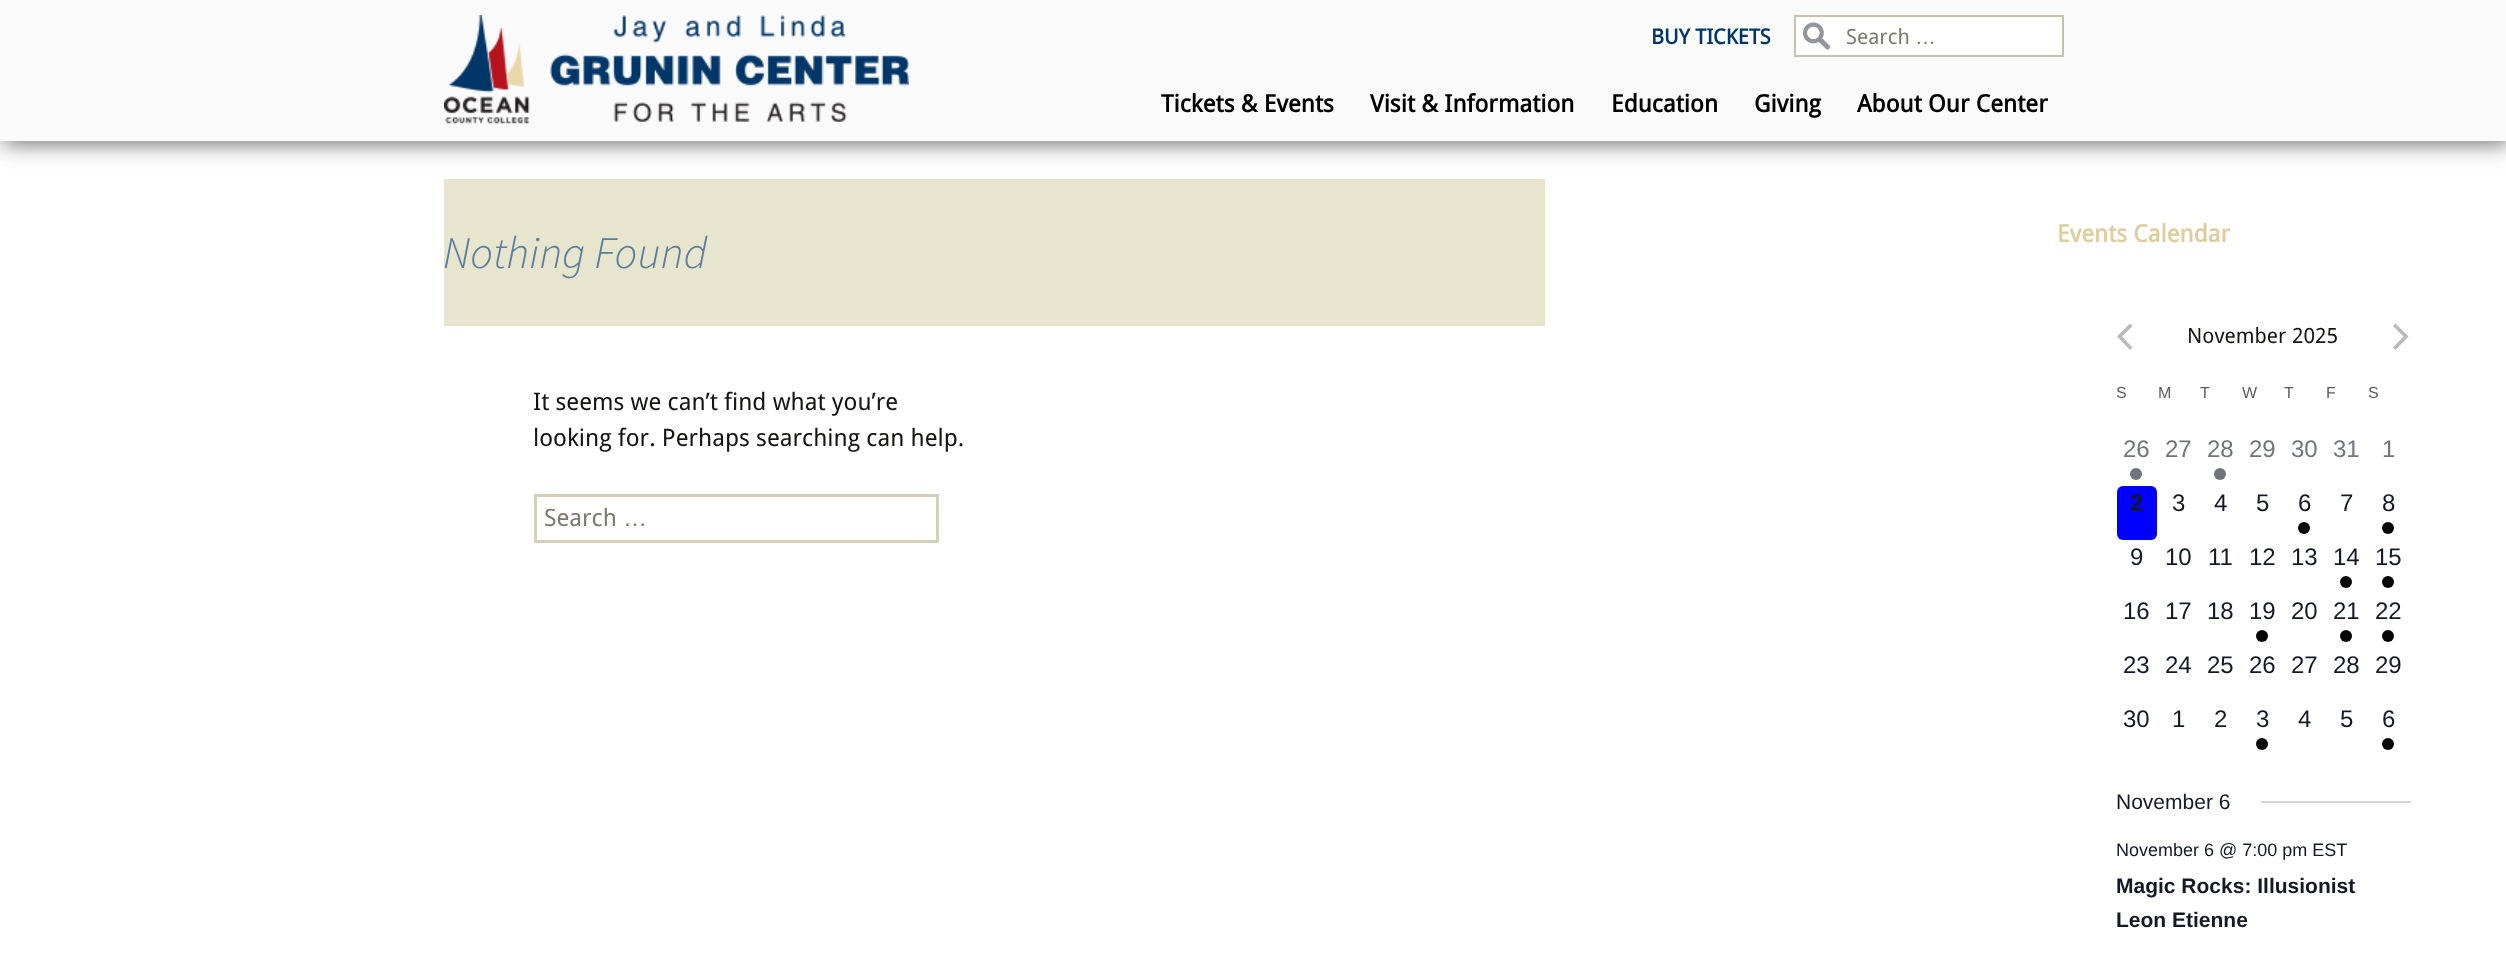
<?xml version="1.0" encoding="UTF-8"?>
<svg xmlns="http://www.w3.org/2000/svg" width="2506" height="969">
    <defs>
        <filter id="blur1" x="-50%" y="-200%" width="200%" height="500%"><feGaussianBlur stdDeviation="11"/></filter>
    </defs>
    <rect width="100%" height="100%" fill="#FFFFFF"/>
    <rect x="3" y="3" width="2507" height="141" fill="#707070" filter="url(#blur1)"/>
    <rect x="0" y="0" width="2506" height="141" fill="#FAFAFA"/>
    <image x="444" y="15" width="465" height="109" href="img_01.png"/>
    <text x="1651" y="44" font-family="Droid Sans" font-size="21" font-weight="700" fill="#003768">BUY TICKETS</text>
    <rect x="1796" y="17" width="266" height="38" fill="#FFFFFF"/>
    <image x="1803" y="22" width="27" height="28" href="img_02.png"/>
    <rect x="1795" y="16" width="268" height="40" fill="none" stroke="#C3C0AB" stroke-width="2"/>
    <text x="1846" y="44" font-family="Droid Sans" font-size="21" fill="#7D7B6D">Search</text>
    <text x="1915" y="44" font-family="Liberation Sans" font-size="21" fill="#7D7B6D">…</text>
    <text x="1161" y="112" font-family="Droid Sans" font-size="24" font-weight="700" fill="#000000">Tickets &amp; Events</text>
    <text x="1370" y="112" font-family="Droid Sans" font-size="24" font-weight="700" fill="#000000">Visit &amp; Information</text>
    <text x="1611" y="112" font-family="Droid Sans" font-size="24" font-weight="700" fill="#000000">Education</text>
    <text x="1754" y="112" font-family="Droid Sans" font-size="24" font-weight="700" fill="#000000">Giving</text>
    <text x="1857" y="112" font-family="Droid Sans" font-size="24" font-weight="700" fill="#000000">About Our Center</text>
    <rect x="444" y="179" width="1101" height="147" fill="#E8E5CE"/>
    <text x="443" y="268" font-family="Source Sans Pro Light" font-size="45" font-weight="300" font-style="italic" fill="#597D9C">Nothing Found</text>
    <text font-family="Droid Sans" font-size="24" fill="#141412">
        <tspan x="533" y="410">It seems we can’t find what you’re</tspan>
        <tspan x="533" y="446">looking for. Perhaps searching can help.</tspan>
    </text>
    <rect x="535.5" y="495.5" width="402" height="46" fill="none" stroke="#D4D0BA" stroke-width="3"/>
    <text x="544" y="526" font-family="Droid Sans" font-size="24" fill="#7D7B6D">Search</text>
    <text x="623" y="526" font-family="Liberation Sans" font-size="24" fill="#7D7B6D">…</text>
    <text x="2057" y="242" font-family="Droid Sans" font-size="24" font-weight="700" fill="#DDCD9F">Events Calendar</text>
    <path d="M 2132.5 347.5 L 2130 350 L 2117 336.5 L 2130 323.5 L 2132.5 326 L 2122 336.5 Z" fill="#BABABA"/>
    <text x="2187" y="343" font-family="Droid Sans" font-size="21" fill="#141412">November 2025</text>
    <path d="M 2393 326 L 2395.5 323.5 L 2408.5 336.5 L 2395.5 350 L 2393 347.5 L 2403.5 336.5 Z" fill="#BABABA"/>
    <text x="2116" y="398" font-family="Liberation Sans" font-size="16" fill="#5D5D5D">S</text>
    <text x="2158" y="398" font-family="Liberation Sans" font-size="16" fill="#5D5D5D">M</text>
    <text x="2200" y="398" font-family="Liberation Sans" font-size="16" fill="#5D5D5D">T</text>
    <text x="2242" y="398" font-family="Liberation Sans" font-size="16" fill="#5D5D5D">W</text>
    <text x="2284" y="398" font-family="Liberation Sans" font-size="16" fill="#5D5D5D">T</text>
    <text x="2326" y="398" font-family="Liberation Sans" font-size="16" fill="#5D5D5D">F</text>
    <text x="2368" y="398" font-family="Liberation Sans" font-size="16" fill="#5D5D5D">S</text>
    <text x="2123" y="457" font-family="Liberation Sans" font-size="24" fill="#72747D">26</text>
    <circle cx="2136" cy="474" r="6" fill="#72747D"/>
    <text x="2165" y="457" font-family="Liberation Sans" font-size="24" fill="#72747D">27</text>
    <text x="2207" y="457" font-family="Liberation Sans" font-size="24" fill="#72747D">28</text>
    <circle cx="2220" cy="474" r="6" fill="#72747D"/>
    <text x="2249" y="457" font-family="Liberation Sans" font-size="24" fill="#72747D">29</text>
    <text x="2291" y="457" font-family="Liberation Sans" font-size="24" fill="#72747D">30</text>
    <text x="2333" y="457" font-family="Liberation Sans" font-size="24" fill="#72747D">31</text>
    <text x="2382" y="457" font-family="Liberation Sans" font-size="24" fill="#72747D">1</text>
    <rect x="2117" y="486" width="40" height="54" rx="6" fill="#0000FF"/>
    <text x="2130" y="511" font-family="Liberation Sans" font-size="24" font-weight="700" fill="#141827">2</text>
    <text x="2172" y="511" font-family="Liberation Sans" font-size="24" fill="#141827">3</text>
    <text x="2214" y="511" font-family="Liberation Sans" font-size="24" fill="#141827">4</text>
    <text x="2256" y="511" font-family="Liberation Sans" font-size="24" fill="#141827">5</text>
    <text x="2298" y="511" font-family="Liberation Sans" font-size="24" fill="#141827">6</text>
    <circle cx="2304" cy="528" r="6" fill="#070707"/>
    <text x="2340" y="511" font-family="Liberation Sans" font-size="24" fill="#141827">7</text>
    <text x="2382" y="511" font-family="Liberation Sans" font-size="24" fill="#141827">8</text>
    <circle cx="2388" cy="528" r="6" fill="#070707"/>
    <text x="2130" y="565" font-family="Liberation Sans" font-size="24" fill="#141827">9</text>
    <text x="2165" y="565" font-family="Liberation Sans" font-size="24" fill="#141827">10</text>
    <text x="2208" y="565" font-family="Liberation Sans" font-size="24" fill="#141827">11</text>
    <text x="2249" y="565" font-family="Liberation Sans" font-size="24" fill="#141827">12</text>
    <text x="2291" y="565" font-family="Liberation Sans" font-size="24" fill="#141827">13</text>
    <text x="2333" y="565" font-family="Liberation Sans" font-size="24" fill="#141827">14</text>
    <circle cx="2346" cy="582" r="6" fill="#070707"/>
    <text x="2375" y="565" font-family="Liberation Sans" font-size="24" fill="#141827">15</text>
    <circle cx="2388" cy="582" r="6" fill="#070707"/>
    <text x="2123" y="619" font-family="Liberation Sans" font-size="24" fill="#141827">16</text>
    <text x="2165" y="619" font-family="Liberation Sans" font-size="24" fill="#141827">17</text>
    <text x="2207" y="619" font-family="Liberation Sans" font-size="24" fill="#141827">18</text>
    <text x="2249" y="619" font-family="Liberation Sans" font-size="24" fill="#141827">19</text>
    <circle cx="2262" cy="636" r="6" fill="#070707"/>
    <text x="2291" y="619" font-family="Liberation Sans" font-size="24" fill="#141827">20</text>
    <text x="2333" y="619" font-family="Liberation Sans" font-size="24" fill="#141827">21</text>
    <circle cx="2346" cy="636" r="6" fill="#070707"/>
    <text x="2375" y="619" font-family="Liberation Sans" font-size="24" fill="#141827">22</text>
    <circle cx="2388" cy="636" r="6" fill="#070707"/>
    <text x="2123" y="673" font-family="Liberation Sans" font-size="24" fill="#141827">23</text>
    <text x="2165" y="673" font-family="Liberation Sans" font-size="24" fill="#141827">24</text>
    <text x="2207" y="673" font-family="Liberation Sans" font-size="24" fill="#141827">25</text>
    <text x="2249" y="673" font-family="Liberation Sans" font-size="24" fill="#141827">26</text>
    <text x="2291" y="673" font-family="Liberation Sans" font-size="24" fill="#141827">27</text>
    <text x="2333" y="673" font-family="Liberation Sans" font-size="24" fill="#141827">28</text>
    <text x="2375" y="673" font-family="Liberation Sans" font-size="24" fill="#141827">29</text>
    <text x="2123" y="727" font-family="Liberation Sans" font-size="24" fill="#141827">30</text>
    <text x="2172" y="727" font-family="Liberation Sans" font-size="24" fill="#141827">1</text>
    <text x="2214" y="727" font-family="Liberation Sans" font-size="24" fill="#141827">2</text>
    <text x="2256" y="727" font-family="Liberation Sans" font-size="24" fill="#141827">3</text>
    <circle cx="2262" cy="744" r="6" fill="#070707"/>
    <text x="2298" y="727" font-family="Liberation Sans" font-size="24" fill="#141827">4</text>
    <text x="2340" y="727" font-family="Liberation Sans" font-size="24" fill="#141827">5</text>
    <text x="2382" y="727" font-family="Liberation Sans" font-size="24" fill="#141827">6</text>
    <circle cx="2388" cy="744" r="6" fill="#070707"/>
    <text x="2116" y="809" font-family="Liberation Sans" font-size="21" fill="#141827">November 6</text>
    <rect x="2261" y="801" width="150" height="2" fill="#D5D5D5"/>
    <text x="2116" y="856" font-family="Liberation Sans" font-size="18" fill="#141827">November 6 @ 7:00 pm EST</text>
    <text font-family="Liberation Sans" font-size="21" font-weight="700" fill="#141827">
        <tspan x="2116" y="893">Magic Rocks: Illusionist</tspan>
        <tspan x="2116" y="927">Leon Etienne</tspan>
    </text>
</svg>
